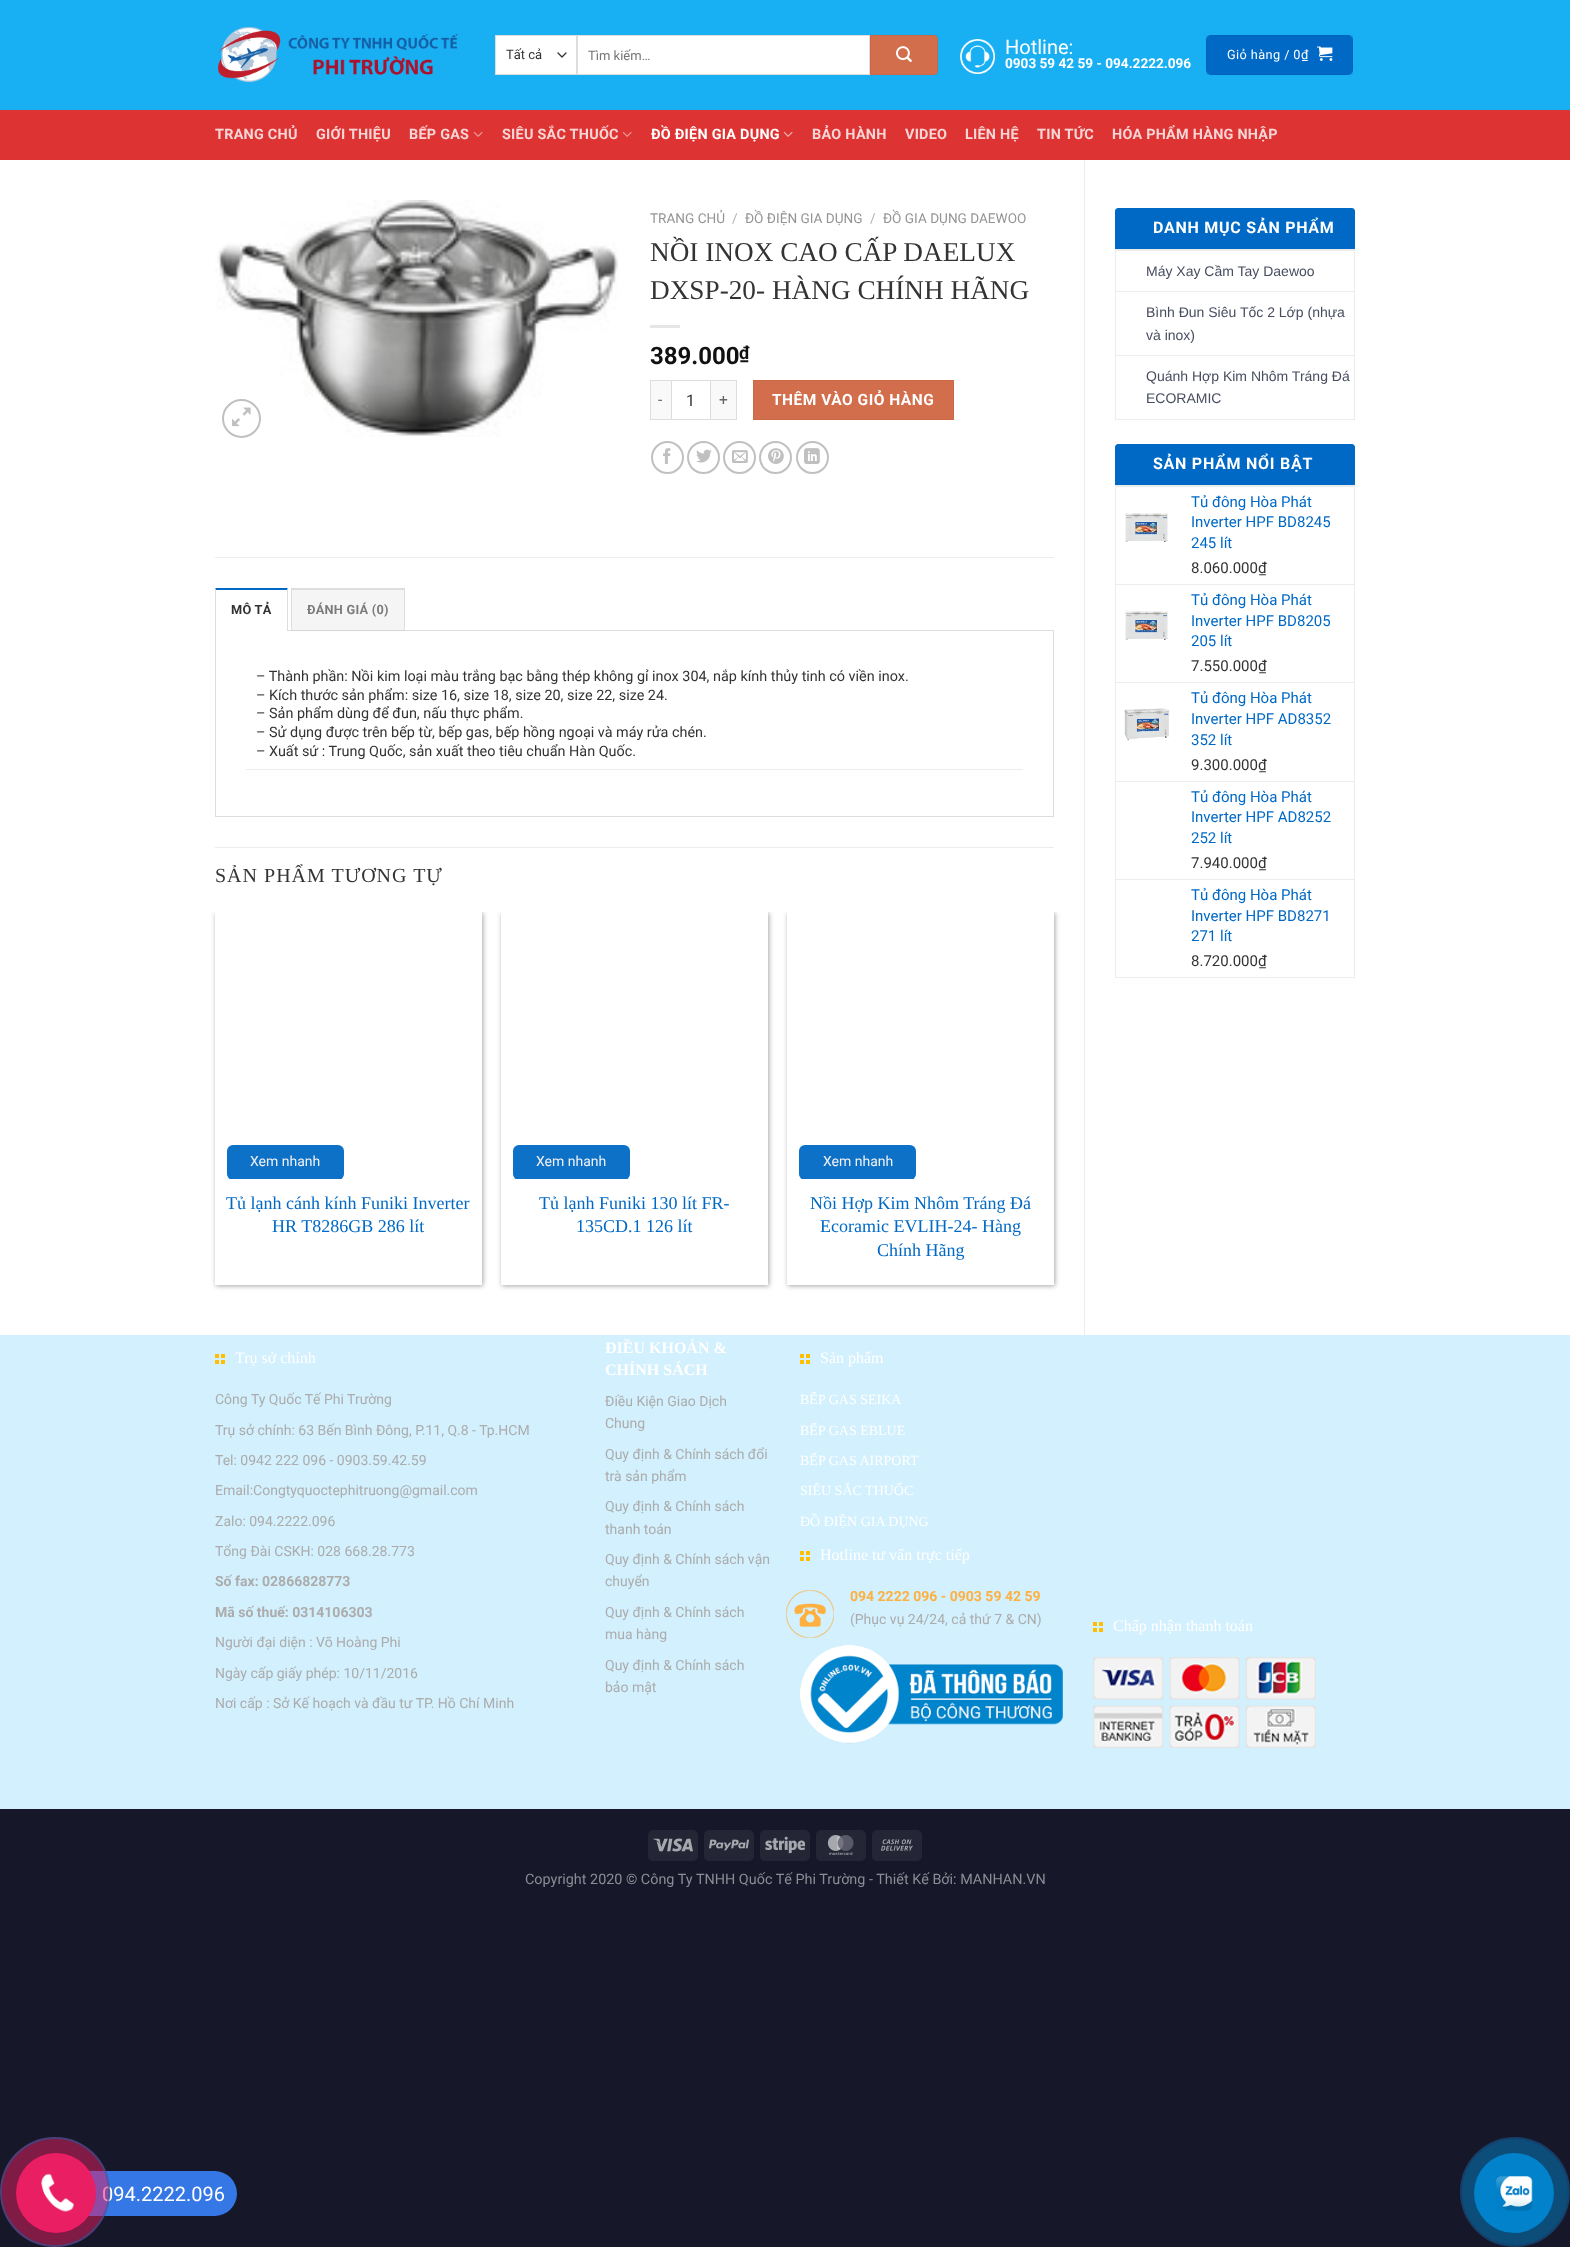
<?xml version="1.0" encoding="UTF-8"?>
<svg xmlns="http://www.w3.org/2000/svg" width="1570" height="2247">
    <defs>
        <clipPath id="clip1"><rect x="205" y="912" width="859" height="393"/></clipPath>
        <clipPath id="clip2"><path d="M 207 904 H 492 V 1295 H 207 Z M 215 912 H 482 V 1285 H 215 Z" clip-rule="evenodd"/></clipPath>
        <filter id="blur1" x="-50%" y="-200%" width="200%" height="500%"><feGaussianBlur stdDeviation="2.5"/></filter>
        <clipPath id="clip3"><rect x="215" y="912" width="267" height="267"/></clipPath>
        <clipPath id="clip4"><path d="M 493 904 H 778 V 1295 H 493 Z M 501 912 H 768 V 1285 H 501 Z" clip-rule="evenodd"/></clipPath>
        <clipPath id="clip5"><rect x="501" y="912" width="267" height="267"/></clipPath>
        <clipPath id="clip6"><path d="M 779 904 H 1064 V 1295 H 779 Z M 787 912 H 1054 V 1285 H 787 Z" clip-rule="evenodd"/></clipPath>
        <clipPath id="clip7"><rect x="787" y="912" width="267" height="267"/></clipPath>
    </defs>
    <rect width="100%" height="100%" fill="#161829"/>
    <rect x="0" y="160" width="1570" height="1175" fill="#FFFFFF"/>
    <rect x="0" y="0" width="1570" height="110" fill="#18B0F3"/>
    <image x="218" y="27" width="241" height="56" href="img_01.png"/>
    <rect x="496" y="36" width="80" height="38" fill="#FFFFFF"/>
    <path d="M 558 53 L 562 57 L 566 53" fill="none" stroke="#333333" stroke-width="1.3" stroke-linecap="round" stroke-linejoin="round"/>
    <rect x="495.5" y="35.5" width="81" height="39" fill="none" stroke="#DDDDDD"/>
    <text x="506" y="59" font-family="Roboto" font-size="13" fill="#333333">Tất cả</text>
    <rect x="577.5" y="35.5" width="292" height="39" fill="#FFFFFF" stroke="#DDDDDD"/>
    <text x="588" y="60" font-family="Roboto" font-size="13" fill="#757575">Tìm kiếm…</text>
    <path d="M 870 35 H 934 C 936 35 938 37 938 39 V 71 C 938 73 936 75 934 75 H 870 Z" fill="#D26E4B"/>
    <rect x="870.5" y="35.5" width="67" height="39" fill="none" stroke="#000000" stroke-opacity="0.05"/>
    <image x="896" y="46" width="16" height="16" href="img_02.png"/>
    <image x="960" y="39" width="35" height="35" href="img_03.png"/>
    <text x="1005" y="54" font-family="Roboto" font-size="20" fill="#FFFFFF">Hotline:</text>
    <text x="1005" y="68" font-family="Roboto" font-size="13.6" font-weight="700" fill="#FFFFFF">0903 59 42 59 - 094.2222.096</text>
    <rect x="1206" y="35" width="147" height="40" rx="5" fill="#0069C5"/>
    <rect x="1206.5" y="35.5" width="146" height="39" fill="none" stroke="#000000" stroke-opacity="0.05"/>
    <text x="1227" y="59" font-family="Roboto" font-size="12.75" letter-spacing="0.4" fill="#FFFFFF">Giỏ hàng / 0₫</text>
    <image x="1317" y="46" width="16" height="15" href="img_04.png"/>
    <rect x="0" y="110" width="1570" height="50" fill="#DD3333"/>
    <text x="215" y="139" font-family="Roboto" font-size="14.4" font-weight="700" letter-spacing="0.25" fill="#F8D6D6">TRANG CHỦ</text>
    <text x="316" y="139" font-family="Roboto" font-size="14.4" font-weight="700" letter-spacing="0.25" fill="#F8D6D6">GIỚI THIỆU</text>
    <text x="409" y="139" font-family="Roboto" font-size="14.4" font-weight="700" letter-spacing="0.25" fill="#F8D6D6">BẾP GAS</text>
    <image x="473" y="131" width="10" height="6" href="img_05.png"/>
    <text x="502" y="139" font-family="Roboto" font-size="14.4" font-weight="700" letter-spacing="0.25" fill="#F8D6D6">SIÊU SẮC THUỐC</text>
    <image x="622" y="131" width="10" height="6" href="img_05.png"/>
    <text x="651" y="139" font-family="Roboto" font-size="14.4" font-weight="700" letter-spacing="0.25" fill="#FFFFFF">ĐỒ ĐIỆN GIA DỤNG</text>
    <image x="783" y="131" width="10" height="6" href="img_06.png"/>
    <text x="812" y="139" font-family="Roboto" font-size="14.4" font-weight="700" letter-spacing="0.25" fill="#F8D6D6">BẢO HÀNH</text>
    <text x="905" y="139" font-family="Roboto" font-size="14.4" font-weight="700" letter-spacing="0.25" fill="#F8D6D6">VIDEO</text>
    <text x="965" y="139" font-family="Roboto" font-size="14.4" font-weight="700" letter-spacing="0.25" fill="#F8D6D6">LIÊN HỆ</text>
    <text x="1037" y="139" font-family="Roboto" font-size="14.4" font-weight="700" letter-spacing="0.25" fill="#F8D6D6">TIN TỨC</text>
    <text x="1112" y="139" font-family="Roboto" font-size="14.4" font-weight="700" letter-spacing="0.25" fill="#F8D6D6">HÓA PHẨM HÀNG NHẬP</text>
    <rect x="1084" y="160" width="1" height="1175" fill="#ECECEC"/>
    <image x="215" y="200" width="404" height="237" href="img_07.png"/>
    <circle cx="241.5" cy="418.5" r="18.5" fill="none" stroke="#C0C0C0" stroke-width="2"/>
    <image x="232" y="407" width="19" height="20" href="img_08.png"/>
    <text x="650" y="223" font-family="Roboto" font-size="13.6" fill="#949494">TRANG CHỦ</text>
    <text x="732" y="223" font-family="Roboto" font-size="13.6" fill="#B2B2B2">/</text>
    <text x="745" y="223" font-family="Roboto" font-size="13.6" fill="#949494">ĐỒ ĐIỆN GIA DỤNG</text>
    <text x="870" y="223" font-family="Roboto" font-size="13.6" fill="#B2B2B2">/</text>
    <text x="883" y="223" font-family="Roboto" font-size="13.6" fill="#949494">ĐỒ GIA DỤNG DAEWOO</text>
    <text font-family="Liberation Serif" font-size="27.25" fill="#333333">
        <tspan x="650" y="261">NỒI INOX CAO CẤP DAELUX</tspan>
        <tspan x="650" y="299">DXSP-20- HÀNG CHÍNH HÃNG</tspan>
    </text>
    <rect x="650" y="325" width="30" height="3" fill="#E6E6E6"/>
    <text x="650" y="364" font-family="Roboto" font-size="24" font-weight="700" fill="#111111">389.000</text>
    <text x="739" y="359" font-family="Roboto" font-size="18" font-weight="700" fill="#111111">₫</text>
    <rect x="651" y="381" width="20" height="38" fill="#F9F9F9"/>
    <rect x="650" y="380" width="21" height="1" fill="#DDDDDD"/>
    <rect x="650" y="419" width="21" height="1" fill="#DDDDDD"/>
    <rect x="650" y="380" width="1" height="40" fill="#DDDDDD"/>
    <text x="658" y="405" font-family="Roboto" font-size="15.5" letter-spacing="0.5" fill="#666666">-</text>
    <rect x="671.5" y="380.5" width="39" height="39" fill="none" stroke="#DDDDDD"/>
    <text x="686" y="406" font-family="Roboto" font-size="16" fill="#333333">1</text>
    <rect x="711" y="381" width="25" height="38" fill="#F9F9F9"/>
    <rect x="711" y="380" width="26" height="1" fill="#DDDDDD"/>
    <rect x="736" y="380" width="1" height="40" fill="#DDDDDD"/>
    <rect x="711" y="419" width="26" height="1" fill="#DDDDDD"/>
    <text x="719" y="405" font-family="Roboto" font-size="15.5" letter-spacing="0.5" fill="#666666">+</text>
    <rect x="753.5" y="380.5" width="200" height="39" fill="#D26E4B" stroke="#C86947"/>
    <text x="772" y="405" font-family="Roboto" font-size="15.5" font-weight="700" letter-spacing="0.5" fill="#FFFFFF">THÊM VÀO GIỎ HÀNG</text>
    <circle cx="667.5" cy="457.5" r="15.5" fill="none" stroke="#C0C0C0" stroke-width="2"/>
    <image x="663" y="448" width="8" height="16" href="img_09.png"/>
    <circle cx="703.5" cy="457.5" r="15.5" fill="none" stroke="#C0C0C0" stroke-width="2"/>
    <image x="696" y="449" width="16" height="14" href="img_10.png"/>
    <circle cx="739.5" cy="457.5" r="15.5" fill="none" stroke="#C0C0C0" stroke-width="2"/>
    <image x="732" y="450" width="16" height="13" href="img_11.png"/>
    <circle cx="775.5" cy="457.5" r="15.5" fill="none" stroke="#C0C0C0" stroke-width="2"/>
    <image x="768" y="448" width="16" height="16" href="img_12.png"/>
    <circle cx="812.5" cy="457.5" r="15.5" fill="none" stroke="#C0C0C0" stroke-width="2"/>
    <image x="804" y="448" width="16" height="16" href="img_13.png"/>
    <rect x="215" y="557" width="839" height="1" fill="#ECECEC"/>
    <rect x="215.5" y="630.5" width="838" height="186" fill="none" stroke="#DDDDDD"/>
    <rect x="215" y="630" width="73" height="1" fill="#FFFFFF"/>
    <path d="M 215 588 H 288 L 287 590 H 216 Z" fill="#0069C5"/>
    <path d="M 288 588 V 631 H 287 V 590 Z" fill="#DDDDDD"/>
    <path d="M 215 631 V 588 L 216 590 V 631 Z" fill="#DDDDDD"/>
    <text x="231" y="614" font-family="Roboto" font-size="12.75" font-weight="700" letter-spacing="0.25" fill="#333333">MÔ TẢ</text>
    <rect x="292" y="590" width="112" height="41" fill="#000000" fill-opacity="0.04"/>
    <rect x="291" y="588" width="114" height="2" fill="#DDDDDD"/>
    <rect x="404" y="588" width="1" height="43" fill="#DDDDDD"/>
    <rect x="291" y="588" width="1" height="43" fill="#DDDDDD"/>
    <text x="307" y="614" font-family="Roboto" font-size="12.75" font-weight="700" letter-spacing="0.25" fill="#7B7B7B">ĐÁNH GIÁ (0)</text>
    <rect x="246" y="769" width="777" height="1" fill="#ECECEC"/>
    <text font-family="Roboto" font-size="14.4" fill="#333333">
        <tspan x="256" y="681">– Thành phần: Nồi kim loại màu trắng bạc bằng thép không gỉ inox 304, nắp kính thủy tinh có viền inox.</tspan>
        <tspan x="256" y="700">– Kích thước sản phẩm: size 16, size 18, size 20, size 22, size 24.</tspan>
        <tspan x="256" y="718">– Sản phẩm dùng để đun, nấu thực phẩm.</tspan>
        <tspan x="256" y="737">– Sử dụng được trên bếp từ, bếp gas, bếp hồng ngoại và máy rửa chén.</tspan>
        <tspan x="256" y="756">– Xuất sứ : Trung Quốc, sản xuất theo tiêu chuẩn Hàn Quốc.</tspan>
    </text>
    <rect x="215" y="847" width="839" height="1" fill="#ECECEC"/>
    <text x="215" y="882" font-family="Liberation Serif" font-size="20" letter-spacing="1" fill="#333333">SẢN PHẨM TƯƠNG TỰ</text>
    <g clip-path="url(#clip1)">
        <g clip-path="url(#clip2)">
            <rect x="216" y="913" width="267" height="373" fill="#000000" fill-opacity="0.35" filter="url(#blur1)"/>
        </g>
    </g>
    <g clip-path="url(#clip3)">
        <rect x="227" y="1145" width="117" height="35" rx="6" fill="#0D71C8"/>
    </g>
    <text x="250" y="1166" font-family="Roboto" font-size="14" fill="#F2F2F2">Xem nhanh</text>
    <text x="226" y="1209" font-family="Liberation Serif" font-size="18" fill="#0069C5">Tủ lạnh cánh kính Funiki Inverter</text>
    <text x="272" y="1232" font-family="Liberation Serif" font-size="18" fill="#0069C5">HR T8286GB 286 lít</text>
    <g clip-path="url(#clip1)">
        <g clip-path="url(#clip4)">
            <rect x="502" y="913" width="267" height="373" fill="#000000" fill-opacity="0.35" filter="url(#blur1)"/>
        </g>
    </g>
    <g clip-path="url(#clip5)">
        <rect x="513" y="1145" width="117" height="35" rx="6" fill="#0D71C8"/>
    </g>
    <text x="536" y="1166" font-family="Roboto" font-size="14" fill="#F2F2F2">Xem nhanh</text>
    <text x="539" y="1209" font-family="Liberation Serif" font-size="18" fill="#0069C5">Tủ lạnh Funiki 130 lít FR-</text>
    <text x="576" y="1232" font-family="Liberation Serif" font-size="18" fill="#0069C5">135CD.1 126 lít</text>
    <g clip-path="url(#clip1)">
        <g clip-path="url(#clip6)">
            <rect x="788" y="913" width="267" height="373" fill="#000000" fill-opacity="0.35" filter="url(#blur1)"/>
        </g>
    </g>
    <g clip-path="url(#clip7)">
        <rect x="799" y="1145" width="117" height="35" rx="6" fill="#0D71C8"/>
    </g>
    <text x="823" y="1166" font-family="Roboto" font-size="14" fill="#F2F2F2">Xem nhanh</text>
    <text x="810" y="1209" font-family="Liberation Serif" font-size="18" fill="#0069C5">Nồi Hợp Kim Nhôm Tráng Đá</text>
    <text x="820" y="1232" font-family="Liberation Serif" font-size="18" fill="#0069C5">Ecoramic EVLIH-24- Hàng</text>
    <text x="877" y="1256" font-family="Liberation Serif" font-size="18" fill="#0069C5">Chính Hãng</text>
    <path d="M 1118 208 H 1352 C 1353.5 208 1355 209.5 1355 211 V 250 H 1115 V 211 C 1115 209.5 1116.5 208 1118 208 Z" fill="#0069C5"/>
    <rect x="1115" y="249" width="240" height="1" fill="#EBEBEB"/>
    <text x="1153" y="233" font-family="Roboto" font-size="16" font-weight="700" letter-spacing="0.75" fill="#FFFFFF">DANH MỤC SẢN PHẨM</text>
    <rect x="1115.5" y="250.5" width="239" height="169" fill="none" stroke="#ECECEC"/>
    <text x="1146" y="276" font-family="Liberation Sans" font-size="14" fill="#474C5F">Máy Xay Cầm Tay Daewoo</text>
    <rect x="1116" y="291" width="238" height="1" fill="#ECECEC"/>
    <text font-family="Liberation Sans" font-size="14" fill="#474C5F">
        <tspan x="1146" y="317">Bình Đun Siêu Tốc 2 Lớp (nhựa</tspan>
        <tspan x="1146" y="340">và inox)</tspan>
    </text>
    <rect x="1116" y="355" width="238" height="1" fill="#ECECEC"/>
    <text font-family="Liberation Sans" font-size="14" fill="#474C5F">
        <tspan x="1146" y="381">Quánh Hợp Kim Nhôm Tráng Đá</tspan>
        <tspan x="1146" y="403">ECORAMIC</tspan>
    </text>
    <path d="M 1118 444 H 1352 C 1353.5 444 1355 445.5 1355 447 V 486 H 1115 V 447 C 1115 445.5 1116.5 444 1118 444 Z" fill="#0069C5"/>
    <rect x="1115" y="485" width="240" height="1" fill="#EBEBEB"/>
    <text x="1153" y="469" font-family="Roboto" font-size="16" font-weight="700" letter-spacing="0.75" fill="#FFFFFF">SẢN PHẨM NỔI BẬT</text>
    <rect x="1115.5" y="486.5" width="239" height="491" fill="none" stroke="#ECECEC"/>
    <text x="1191" y="507" font-family="Roboto" font-size="15" fill="#0069C5">Tủ đông Hòa Phát</text>
    <image x="1125" y="513" width="43" height="29" href="img_14.png"/>
    <text font-family="Roboto" font-size="15" fill="#0069C5">
        <tspan x="1191" y="527">Inverter HPF BD8245</tspan>
        <tspan x="1191" y="548">245 lít</tspan>
    </text>
    <text x="1191" y="573" font-family="Roboto" font-size="15" fill="#333333">8.060.000₫</text>
    <rect x="1116" y="584" width="238" height="1" fill="#ECECEC"/>
    <text x="1191" y="605" font-family="Roboto" font-size="15" fill="#0069C5">Tủ đông Hòa Phát</text>
    <image x="1125" y="611" width="43" height="29" href="img_14.png"/>
    <text font-family="Roboto" font-size="15" fill="#0069C5">
        <tspan x="1191" y="626">Inverter HPF BD8205</tspan>
        <tspan x="1191" y="646">205 lít</tspan>
    </text>
    <text x="1191" y="671" font-family="Roboto" font-size="15" fill="#333333">7.550.000₫</text>
    <rect x="1116" y="682" width="238" height="1" fill="#ECECEC"/>
    <text x="1191" y="703" font-family="Roboto" font-size="15" fill="#0069C5">Tủ đông Hòa Phát</text>
    <image x="1124" y="708" width="46" height="33" href="img_15.png"/>
    <text font-family="Roboto" font-size="15" fill="#0069C5">
        <tspan x="1191" y="724">Inverter HPF AD8352</tspan>
        <tspan x="1191" y="745">352 lít</tspan>
    </text>
    <text x="1191" y="770" font-family="Roboto" font-size="15" fill="#333333">9.300.000₫</text>
    <rect x="1116" y="781" width="238" height="1" fill="#ECECEC"/>
    <text font-family="Roboto" font-size="15" fill="#0069C5">
        <tspan x="1191" y="802">Tủ đông Hòa Phát</tspan>
        <tspan x="1191" y="822">Inverter HPF AD8252</tspan>
        <tspan x="1191" y="843">252 lít</tspan>
    </text>
    <text x="1191" y="868" font-family="Roboto" font-size="15" fill="#333333">7.940.000₫</text>
    <rect x="1116" y="879" width="238" height="1" fill="#ECECEC"/>
    <text font-family="Roboto" font-size="15" fill="#0069C5">
        <tspan x="1191" y="900">Tủ đông Hòa Phát</tspan>
        <tspan x="1191" y="921">Inverter HPF BD8271</tspan>
        <tspan x="1191" y="941">271 lít</tspan>
    </text>
    <text x="1191" y="966" font-family="Roboto" font-size="15" fill="#333333">8.720.000₫</text>
    <rect x="0" y="1335" width="1570" height="474" fill="#D2F0FD"/>
    <image x="215" y="1354" width="10" height="10" href="img_16.png"/>
    <text x="235" y="1363" font-family="Liberation Serif" font-size="16" fill="#FFFFFF">Trụ sở chính</text>
    <text x="215" y="1404" font-family="Roboto" font-size="14" fill="#ACACAC">Công Ty Quốc Tế Phi Trường</text>
    <text x="215" y="1435" font-family="Roboto" font-size="14" fill="#ACACAC">Trụ sở chính: 63 Bến Bình Đông, P.11, Q.8 - Tp.HCM</text>
    <text x="215" y="1465" font-family="Roboto" font-size="14" fill="#ACACAC">Tel: 0942 222 096 - 0903.59.42.59</text>
    <text x="215" y="1495" font-family="Roboto" font-size="14" fill="#ACACAC">Email:Congtyquoctephitruong@gmail.com</text>
    <text x="215" y="1526" font-family="Roboto" font-size="14" fill="#ACACAC">Zalo: 094.2222.096</text>
    <text x="215" y="1556" font-family="Roboto" font-size="14" fill="#ACACAC">Tổng Đài CSKH: 028 668.28.773</text>
    <text x="215" y="1586" font-family="Roboto" font-size="14" font-weight="700" fill="#ACACAC">Số fax: 02866828773</text>
    <text x="215" y="1617" font-family="Roboto" font-size="14" font-weight="700" fill="#ACACAC">Mã số thuế: 0314106303</text>
    <text x="215" y="1647" font-family="Roboto" font-size="14" fill="#ACACAC">Người đại diện : Võ Hoàng Phi</text>
    <text x="215" y="1678" font-family="Roboto" font-size="14" fill="#ACACAC">Ngày cấp giấy phép: 10/11/2016</text>
    <text x="215" y="1708" font-family="Roboto" font-size="14" fill="#ACACAC">Nơi cấp : Sở Kế hoạch và đầu tư TP. Hồ Chí Minh</text>
    <text font-family="Liberation Serif" font-size="16" font-weight="700" fill="#FFFFFF">
        <tspan x="605" y="1353">ĐIỀU KHOẢN &amp;</tspan>
        <tspan x="605" y="1375">CHÍNH SÁCH</tspan>
    </text>
    <text font-family="Roboto" font-size="14" fill="#ACACAC">
        <tspan x="605" y="1406">Điều Kiện Giao Dịch</tspan>
        <tspan x="605" y="1428">Chung</tspan>
    </text>
    <text font-family="Roboto" font-size="14" fill="#ACACAC">
        <tspan x="605" y="1459">Quy định &amp; Chính sách đổi</tspan>
        <tspan x="605" y="1481">trà sản phẩm</tspan>
    </text>
    <text font-family="Roboto" font-size="14" fill="#ACACAC">
        <tspan x="605" y="1511">Quy định &amp; Chính sách</tspan>
        <tspan x="605" y="1534">thanh toán</tspan>
    </text>
    <text font-family="Roboto" font-size="14" fill="#ACACAC">
        <tspan x="605" y="1564">Quy định &amp; Chính sách vận</tspan>
        <tspan x="605" y="1586">chuyển</tspan>
    </text>
    <text font-family="Roboto" font-size="14" fill="#ACACAC">
        <tspan x="605" y="1617">Quy định &amp; Chính sách</tspan>
        <tspan x="605" y="1639">mua hàng</tspan>
    </text>
    <text font-family="Roboto" font-size="14" fill="#ACACAC">
        <tspan x="605" y="1670">Quy định &amp; Chính sách</tspan>
        <tspan x="605" y="1692">bảo mật</tspan>
    </text>
    <image x="800" y="1354" width="10" height="10" href="img_16.png"/>
    <text x="820" y="1363" font-family="Liberation Serif" font-size="16" fill="#FFFFFF">Sản phẩm</text>
    <text x="800" y="1404" font-family="Liberation Serif" font-size="14" fill="#FFFFFF">BẾP GAS SEIKA</text>
    <text x="800" y="1435" font-family="Liberation Serif" font-size="14" fill="#FFFFFF">BẾP GAS EBLUE</text>
    <text x="800" y="1465" font-family="Liberation Serif" font-size="14" fill="#FFFFFF">BẾP GAS AIRPORT</text>
    <text x="800" y="1495" font-family="Liberation Serif" font-size="14" fill="#FFFFFF">SIÊU SẮC THUỐC</text>
    <text x="800" y="1526" font-family="Liberation Serif" font-size="14" fill="#FFFFFF">ĐỒ ĐIỆN GIA DỤNG</text>
    <image x="800" y="1551" width="10" height="10" href="img_16.png"/>
    <text x="820" y="1560" font-family="Liberation Serif" font-size="16" fill="#FFFFFF">Hotline tư vấn trực tiếp</text>
    <image x="786" y="1590" width="48" height="48" href="img_17.png"/>
    <text x="850" y="1601" font-family="Roboto" font-size="14" font-weight="700" fill="#FEB041">094 2222 096 - 0903 59 42 59</text>
    <text x="850" y="1624" font-family="Roboto" font-size="14" fill="#ACACAC">(Phục vụ 24/24, cả thứ 7 &amp; CN)</text>
    <image x="800" y="1645" width="263" height="99" href="img_18.png"/>
    <image x="1093" y="1622" width="10" height="10" href="img_16.png"/>
    <text x="1113" y="1631" font-family="Liberation Serif" font-size="16" fill="#FFFFFF">Chấp nhận thanh toán</text>
    <image x="1093" y="1657" width="223" height="91" href="img_19.png"/>
    <rect x="648" y="1830" width="50" height="31" rx="5" fill="#242636"/>
    <image x="653" y="1838" width="40" height="14" href="img_20.png"/>
    <rect x="704" y="1830" width="50" height="31" rx="5" fill="#242636"/>
    <image x="709" y="1839" width="40" height="12" href="img_21.png"/>
    <rect x="760" y="1830" width="50" height="31" rx="5" fill="#242636"/>
    <image x="765" y="1836" width="40" height="18" href="img_22.png"/>
    <rect x="816" y="1830" width="50" height="31" rx="5" fill="#242636"/>
    <image x="827" y="1835" width="27" height="20" href="img_23.png"/>
    <rect x="872" y="1830" width="50" height="31" rx="5" fill="#242636"/>
    <image x="881" y="1839" width="32" height="12" href="img_24.png"/>
    <text x="525" y="1884" font-family="Roboto" font-size="14.4" fill="#8B8C94">Copyright 2020 © Công Ty TNHH Quốc Tế Phi Trường - Thiết Kế Bởi: MANHAN.VN</text>
    <rect x="52" y="2171" width="185" height="45" rx="22.5" fill="#3578E5"/>
    <text x="102" y="2201" font-family="Roboto" font-size="20" fill="#FFFFFF">094.2222.096</text>
    <circle cx="55" cy="2192" r="55" fill="#E91E63" fill-opacity="0.5"/>
    <circle cx="55" cy="2192" r="54" fill="none" stroke="#1564A7" stroke-opacity="0.5" stroke-width="2"/>
    <circle cx="56" cy="2193" r="40" fill="#E91E63"/>
    <image x="41" y="2173" width="33" height="39" href="img_25.png"/>
    <circle cx="1515" cy="2192" r="54" fill="#0C4D7A" stroke="#163E68" stroke-width="2"/>
    <circle cx="1514" cy="2193" r="40" fill="#0182CA"/>
    <image x="1495" y="2176" width="38" height="35" href="img_26.png"/>
</svg>
